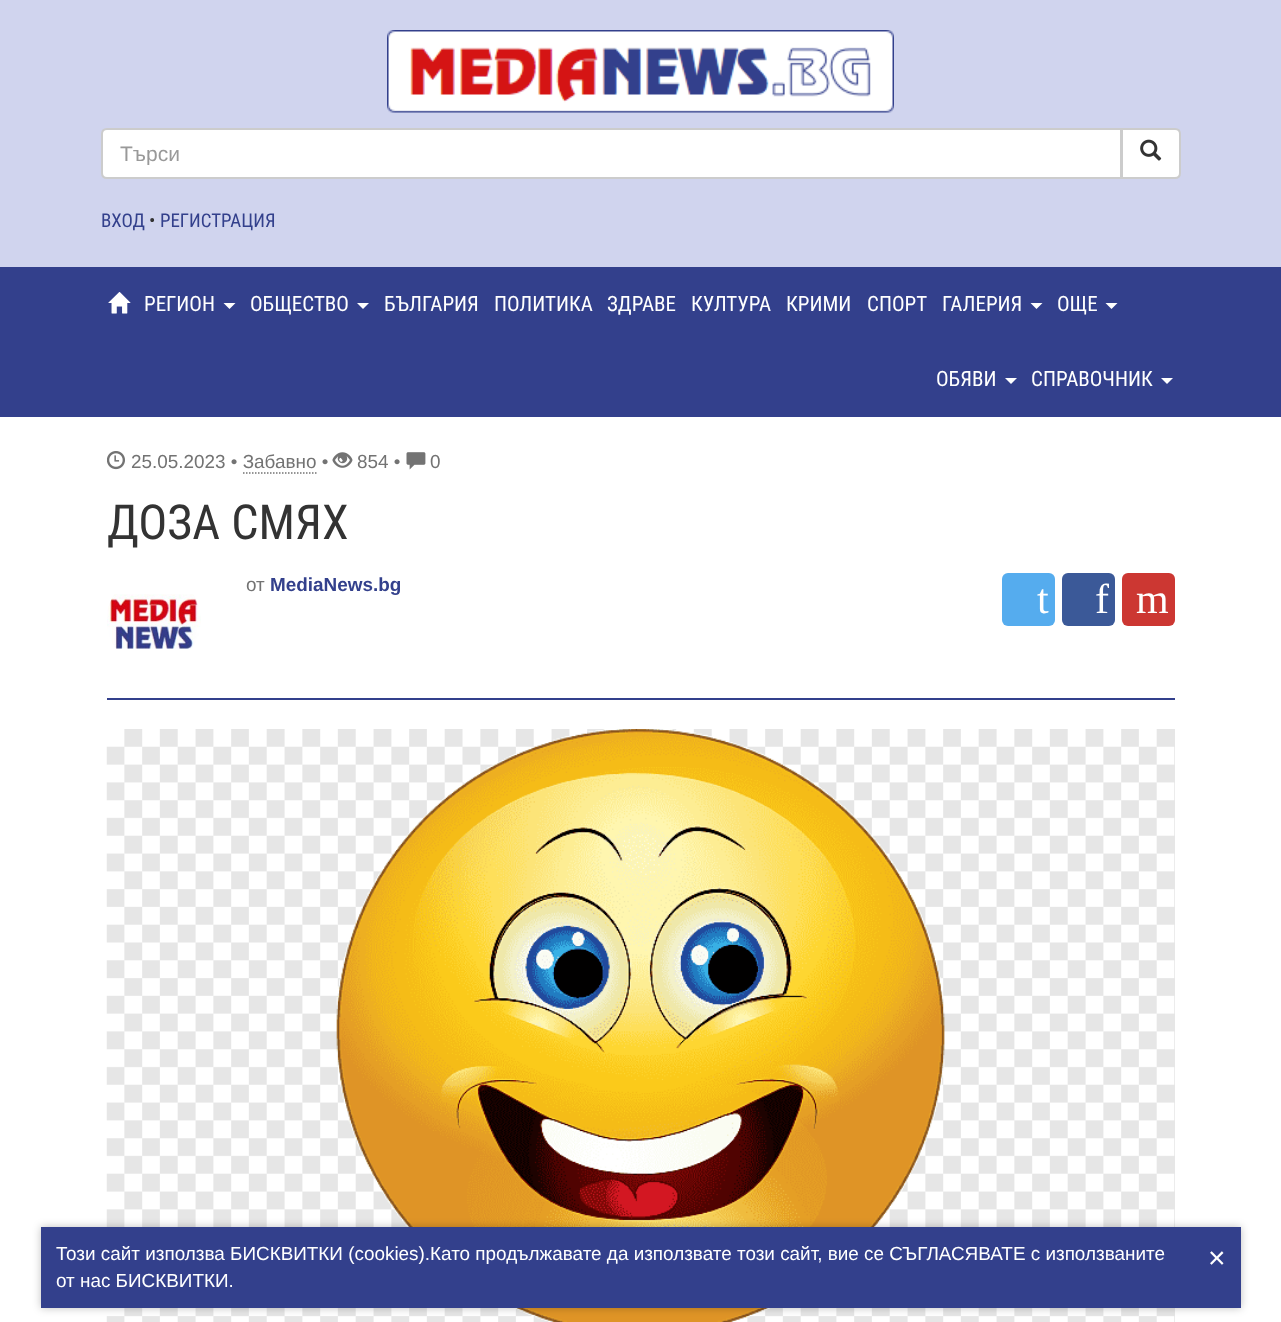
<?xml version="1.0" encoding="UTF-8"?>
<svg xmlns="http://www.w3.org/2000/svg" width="1281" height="1322">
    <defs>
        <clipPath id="clip1"><rect x="120" y="141" width="983" height="24"/></clipPath>
        <filter id="blur1" x="-50%" y="-200%" width="200%" height="500%"><feGaussianBlur stdDeviation="4"/></filter>
    </defs>
    <rect width="100%" height="100%" fill="#FFFFFF"/>
    <rect x="0" y="0" width="1281" height="267" fill="#D0D4EE"/>
    <image x="387" y="30" width="507" height="83" href="img_01.png"/>
    <path d="M 107 129 H 1121 V 178 H 107 C 104 178 102 176 102 173 V 134 C 102 131 104 129 107 129 Z" fill="#FFFFFF" stroke="#CCCCCC" stroke-width="2"/>
    <g clip-path="url(#clip1)">
        <text x="120" y="161" font-family="Liberation Sans" font-size="21" fill="#999999">Търси</text>
    </g>
    <path d="M 1122 129 H 1175 C 1178 129 1180 131 1180 134 V 173 C 1180 176 1178 178 1175 178 H 1122 Z" fill="#FFFFFF" stroke="#CCCCCC" stroke-width="2"/>
    <image x="1140" y="139" width="22" height="22" href="img_02.png"/>
    <text x="101" y="227" font-family="Roboto Condensed" font-size="18.9" fill="#33408C">ВХОД</text>
    <text x="149" y="227" font-family="Roboto Condensed" font-size="18.9" fill="#333333">•</text>
    <text x="160" y="227" font-family="Roboto Condensed" font-size="18.9" fill="#33408C">РЕГИСТРАЦИЯ</text>
    <rect x="0" y="267" width="1281" height="150" fill="#33408C"/>
    <image x="108" y="292" width="23" height="22" href="img_03.png"/>
    <text x="144" y="311" font-family="Roboto Condensed" font-size="21" fill="#FFFFFF">РЕГИОН</text>
    <path d="M 223.5 303 H 235.5 L 229.5 309 Z" fill="#FFFFFF"/>
    <text x="250" y="311" font-family="Roboto Condensed" font-size="21" fill="#FFFFFF">ОБЩЕСТВО</text>
    <path d="M 357 303 H 369 L 363 309 Z" fill="#FFFFFF"/>
    <text x="384" y="311" font-family="Roboto Condensed" font-size="21" fill="#FFFFFF">БЪЛГАРИЯ</text>
    <text x="494" y="311" font-family="Roboto Condensed" font-size="21" fill="#FFFFFF">ПОЛИТИКА</text>
    <text x="607" y="311" font-family="Roboto Condensed" font-size="21" fill="#FFFFFF">ЗДРАВЕ</text>
    <text x="691" y="311" font-family="Roboto Condensed" font-size="21" fill="#FFFFFF">КУЛТУРА</text>
    <text x="786" y="311" font-family="Roboto Condensed" font-size="21" fill="#FFFFFF">КРИМИ</text>
    <text x="867" y="311" font-family="Roboto Condensed" font-size="21" fill="#FFFFFF">СПОРТ</text>
    <text x="942" y="311" font-family="Roboto Condensed" font-size="21" fill="#FFFFFF">ГАЛЕРИЯ</text>
    <path d="M 1030.5 303 H 1042.5 L 1036.5 309 Z" fill="#FFFFFF"/>
    <text x="1057" y="311" font-family="Roboto Condensed" font-size="21" fill="#FFFFFF">ОЩЕ</text>
    <path d="M 1105.5 303 H 1117.5 L 1111.5 309 Z" fill="#FFFFFF"/>
    <text x="936" y="386" font-family="Roboto Condensed" font-size="21" fill="#FFFFFF">ОБЯВИ</text>
    <path d="M 1005 378 H 1017 L 1011 384 Z" fill="#FFFFFF"/>
    <text x="1031" y="386" font-family="Roboto Condensed" font-size="21" fill="#FFFFFF">СПРАВОЧНИК</text>
    <path d="M 1161 378 H 1173 L 1167 384 Z" fill="#FFFFFF"/>
    <image x="107" y="451" width="18" height="19" href="img_04.png"/>
    <text x="131" y="468" font-family="Liberation Sans" font-size="18.9" fill="#737373">25.05.2023 • Забавно •</text>
    <image x="332" y="452" width="21" height="16" href="img_05.png"/>
    <text x="357" y="468" font-family="Liberation Sans" font-size="18.9" fill="#737373">854 •</text>
    <image x="406" y="452" width="20" height="18" href="img_06.png"/>
    <text x="430" y="468" font-family="Liberation Sans" font-size="18.9" fill="#737373">0</text>
    <path d="M 243 473 H 316.5" fill="none" stroke="#737373" stroke-width="1.5" stroke-dasharray="1.5 1.5"/>
    <text x="107" y="539" font-family="Roboto Condensed" font-size="48.25" fill="#333333">ДОЗА СМЯХ</text>
    <text x="246" y="591" font-family="Liberation Sans" font-size="18.9" fill="#737373">от</text>
    <text x="270" y="591" font-family="Liberation Sans" font-size="18.9" font-weight="700" fill="#33408C">MediaNews.bg</text>
    <image x="107" y="594" width="94" height="55" href="img_07.png"/>
    <rect x="1002" y="573" width="53" height="53" rx="6" fill="#55ACEE"/>
    <text x="1037" y="613" font-family="Liberation Serif" font-size="42" fill="#FFFFFF">t</text>
    <rect x="1062" y="573" width="53" height="53" rx="6" fill="#3B5998"/>
    <text x="1095" y="613" font-family="Liberation Serif" font-size="42" fill="#FFFFFF">f</text>
    <rect x="1122" y="573" width="53" height="53" rx="6" fill="#CC3732"/>
    <text x="1136" y="613" font-family="Liberation Serif" font-size="42" fill="#FFFFFF">m</text>
    <rect x="107" y="698" width="1068" height="2" fill="#33408C"/>
    <rect x="1174" y="729" width="1" height="593" fill="#E6E6E6"/>
    <image x="106" y="729" width="1069" height="593" href="img_08.png"/>
    <rect x="41" y="1227" width="1200" height="81" fill="#000000" fill-opacity="0.25" filter="url(#blur1)"/>
    <rect x="41" y="1227" width="1200" height="81" fill="#33408C"/>
    <text x="56" y="1260" font-family="Liberation Sans" font-size="18.9" fill="#FFFFFF">Този сайт използва БИСКВИТКИ (cookies).Като продължавате да използвате този сайт, вие се СЪГЛАСЯВАТЕ с използваните</text>
    <text x="1208" y="1268" font-family="Liberation Sans" font-size="30" fill="#FFFFFF">×</text>
    <text x="56" y="1287" font-family="Liberation Sans" font-size="18.9" fill="#FFFFFF">от нас БИСКВИТКИ.</text>
</svg>
